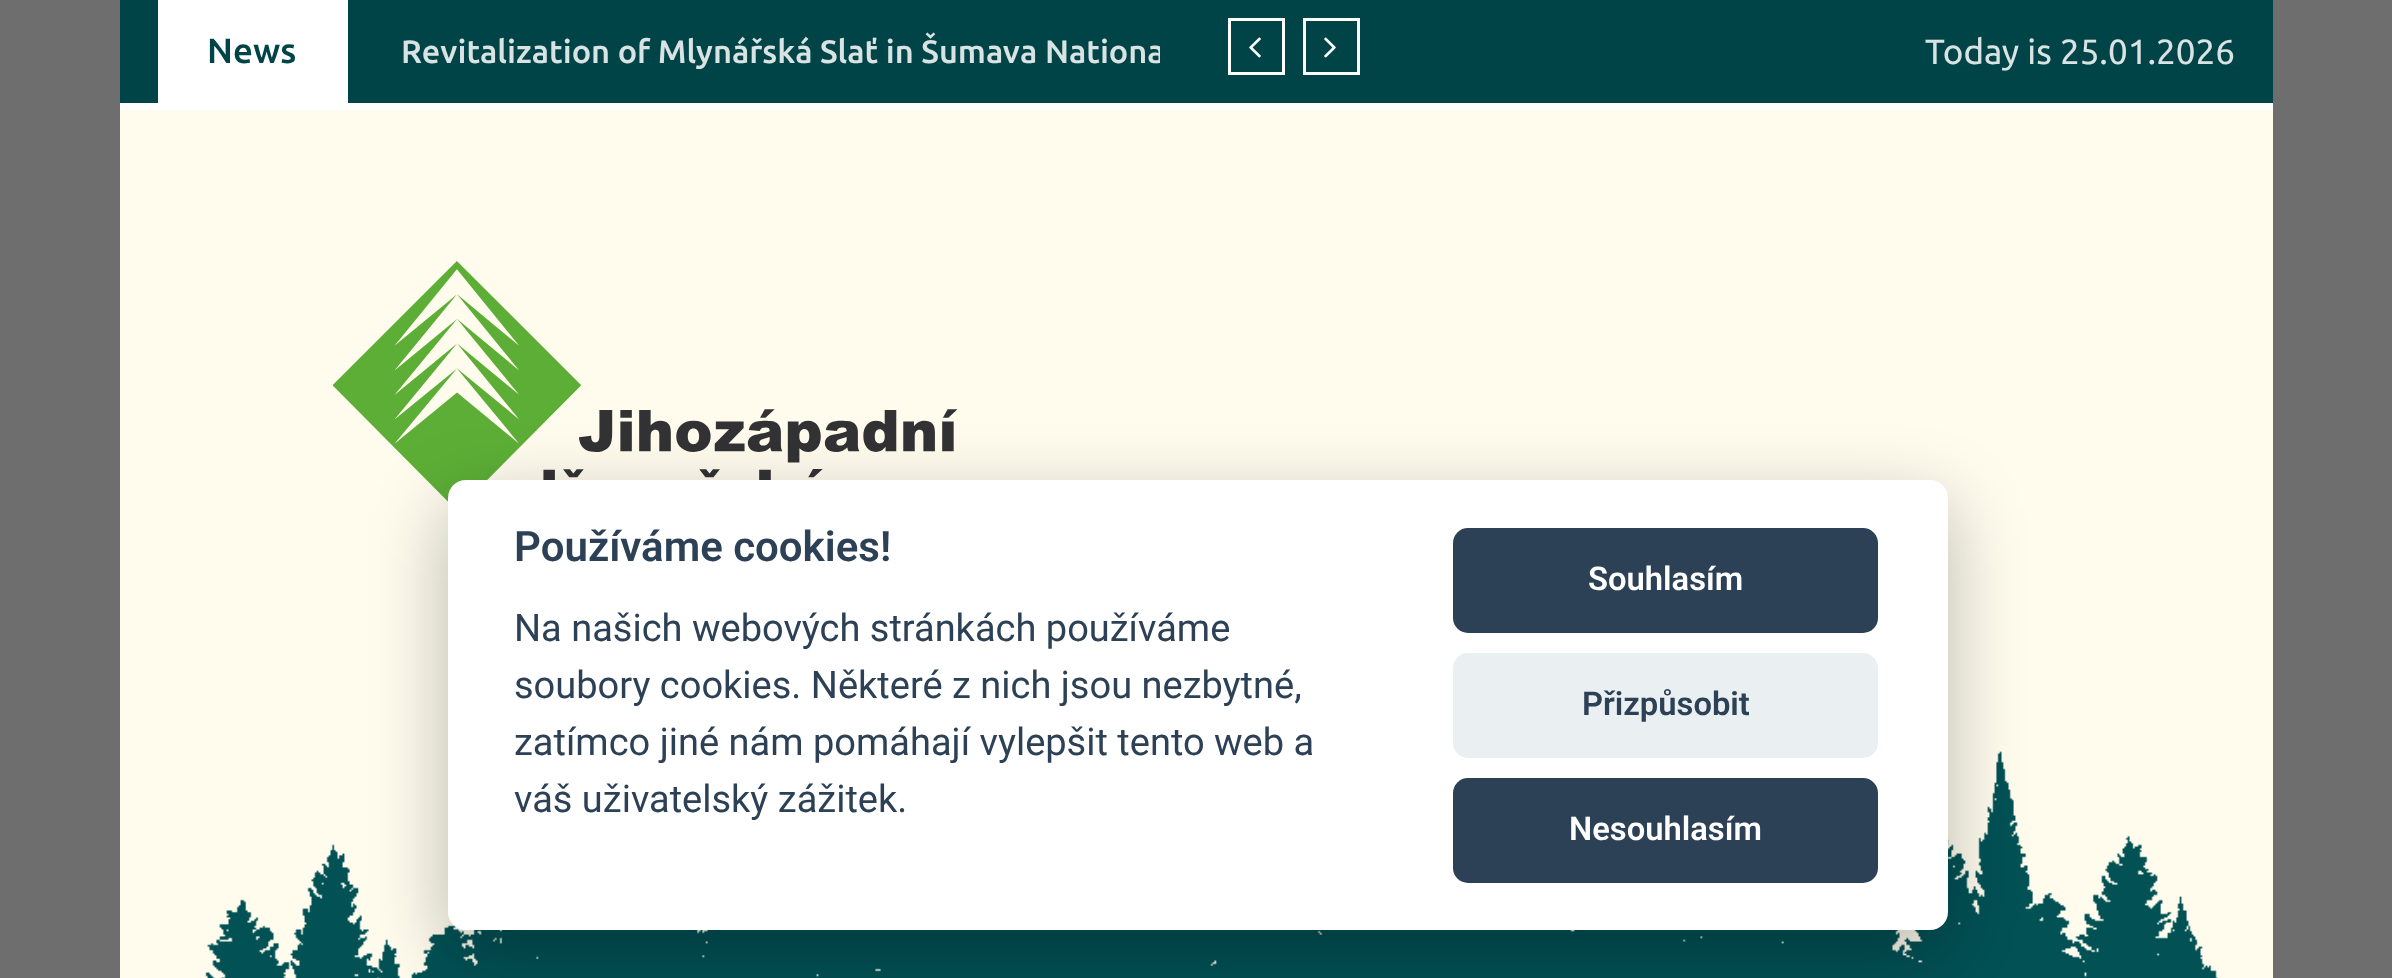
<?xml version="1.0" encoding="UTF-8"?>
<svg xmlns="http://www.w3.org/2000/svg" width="2392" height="978">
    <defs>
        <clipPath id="clip1"><rect x="373" y="0" width="787" height="145"/></clipPath>
        <filter id="blur1" x="-50%" y="-200%" width="200%" height="500%"><feGaussianBlur stdDeviation="37.5"/></filter>
    </defs>
    <rect width="100%" height="100%" fill="#6E6E6E"/>
    <rect x="120" y="0" width="2153" height="103" fill="#004447"/>
    <rect x="158" y="0" width="190" height="103" fill="#FFFFFF"/>
    <text x="207" y="63" font-family="Ubuntu" font-size="35" font-weight="500" fill="#004447">News</text>
    <g clip-path="url(#clip1)">
        <text x="401" y="63" font-family="Ubuntu" font-size="32.5" font-weight="500" fill="#D9E3E3">Revitalization of Mlynářská Slať in Šumava Nationa</text>
    </g>
    <rect x="1229.5" y="19.5" width="54" height="54" fill="none" stroke="#FFFFFF" stroke-width="3"/>
    <image x="1249" y="37" width="12" height="21" href="img_01.png"/>
    <rect x="1304.5" y="19.5" width="54" height="54" fill="none" stroke="#FFFFFF" stroke-width="3"/>
    <image x="1324" y="37" width="12" height="21" href="img_02.png"/>
    <text x="1925" y="64" font-family="Ubuntu" font-size="35" fill="#D9E3E3">Today is 25.01.2026</text>
    <rect x="120" y="103" width="2153" height="7" fill="#FFFFFF"/>
    <rect x="120" y="110" width="2153" height="868" fill="#FFFCEE"/>
    <image x="333" y="261" width="625" height="241" href="img_03.png"/>
    <image x="205" y="751" width="2013" height="227" href="img_04.png"/>
    <rect x="448" y="505" width="1500" height="450" rx="18" fill="#020203" fill-opacity="0.28" filter="url(#blur1)"/>
    <rect x="448" y="480" width="1500" height="450" rx="18" fill="#FFFFFF"/>
    <text x="514" y="561" font-family="Roboto" font-size="42" font-weight="600" fill="#2D4156">Používáme cookies!</text>
    <text font-family="Roboto" font-size="38" fill="#2D4156">
        <tspan x="514" y="641">Na našich webových stránkách používáme</tspan>
        <tspan x="514" y="698">soubory cookies. Některé z nich jsou nezbytné,</tspan>
        <tspan x="514" y="755">zatímco jiné nám pomáhají vylepšit tento web a</tspan>
        <tspan x="514" y="812">váš uživatelský zážitek.</tspan>
    </text>
    <rect x="1453" y="528" width="425" height="105" rx="15" fill="#2D4156"/>
    <text x="1588" y="590" font-family="Roboto" font-size="32.75" font-weight="600" fill="#FFFFFF">Souhlasím</text>
    <rect x="1453" y="653" width="425" height="105" rx="15" fill="#EAEFF2"/>
    <text x="1582" y="715" font-family="Roboto" font-size="32.75" font-weight="600" fill="#2D4156">Přizpůsobit</text>
    <rect x="1453" y="778" width="425" height="105" rx="15" fill="#2D4156"/>
    <text x="1569" y="840" font-family="Roboto" font-size="32.75" font-weight="600" fill="#FFFFFF">Nesouhlasím</text>
</svg>
